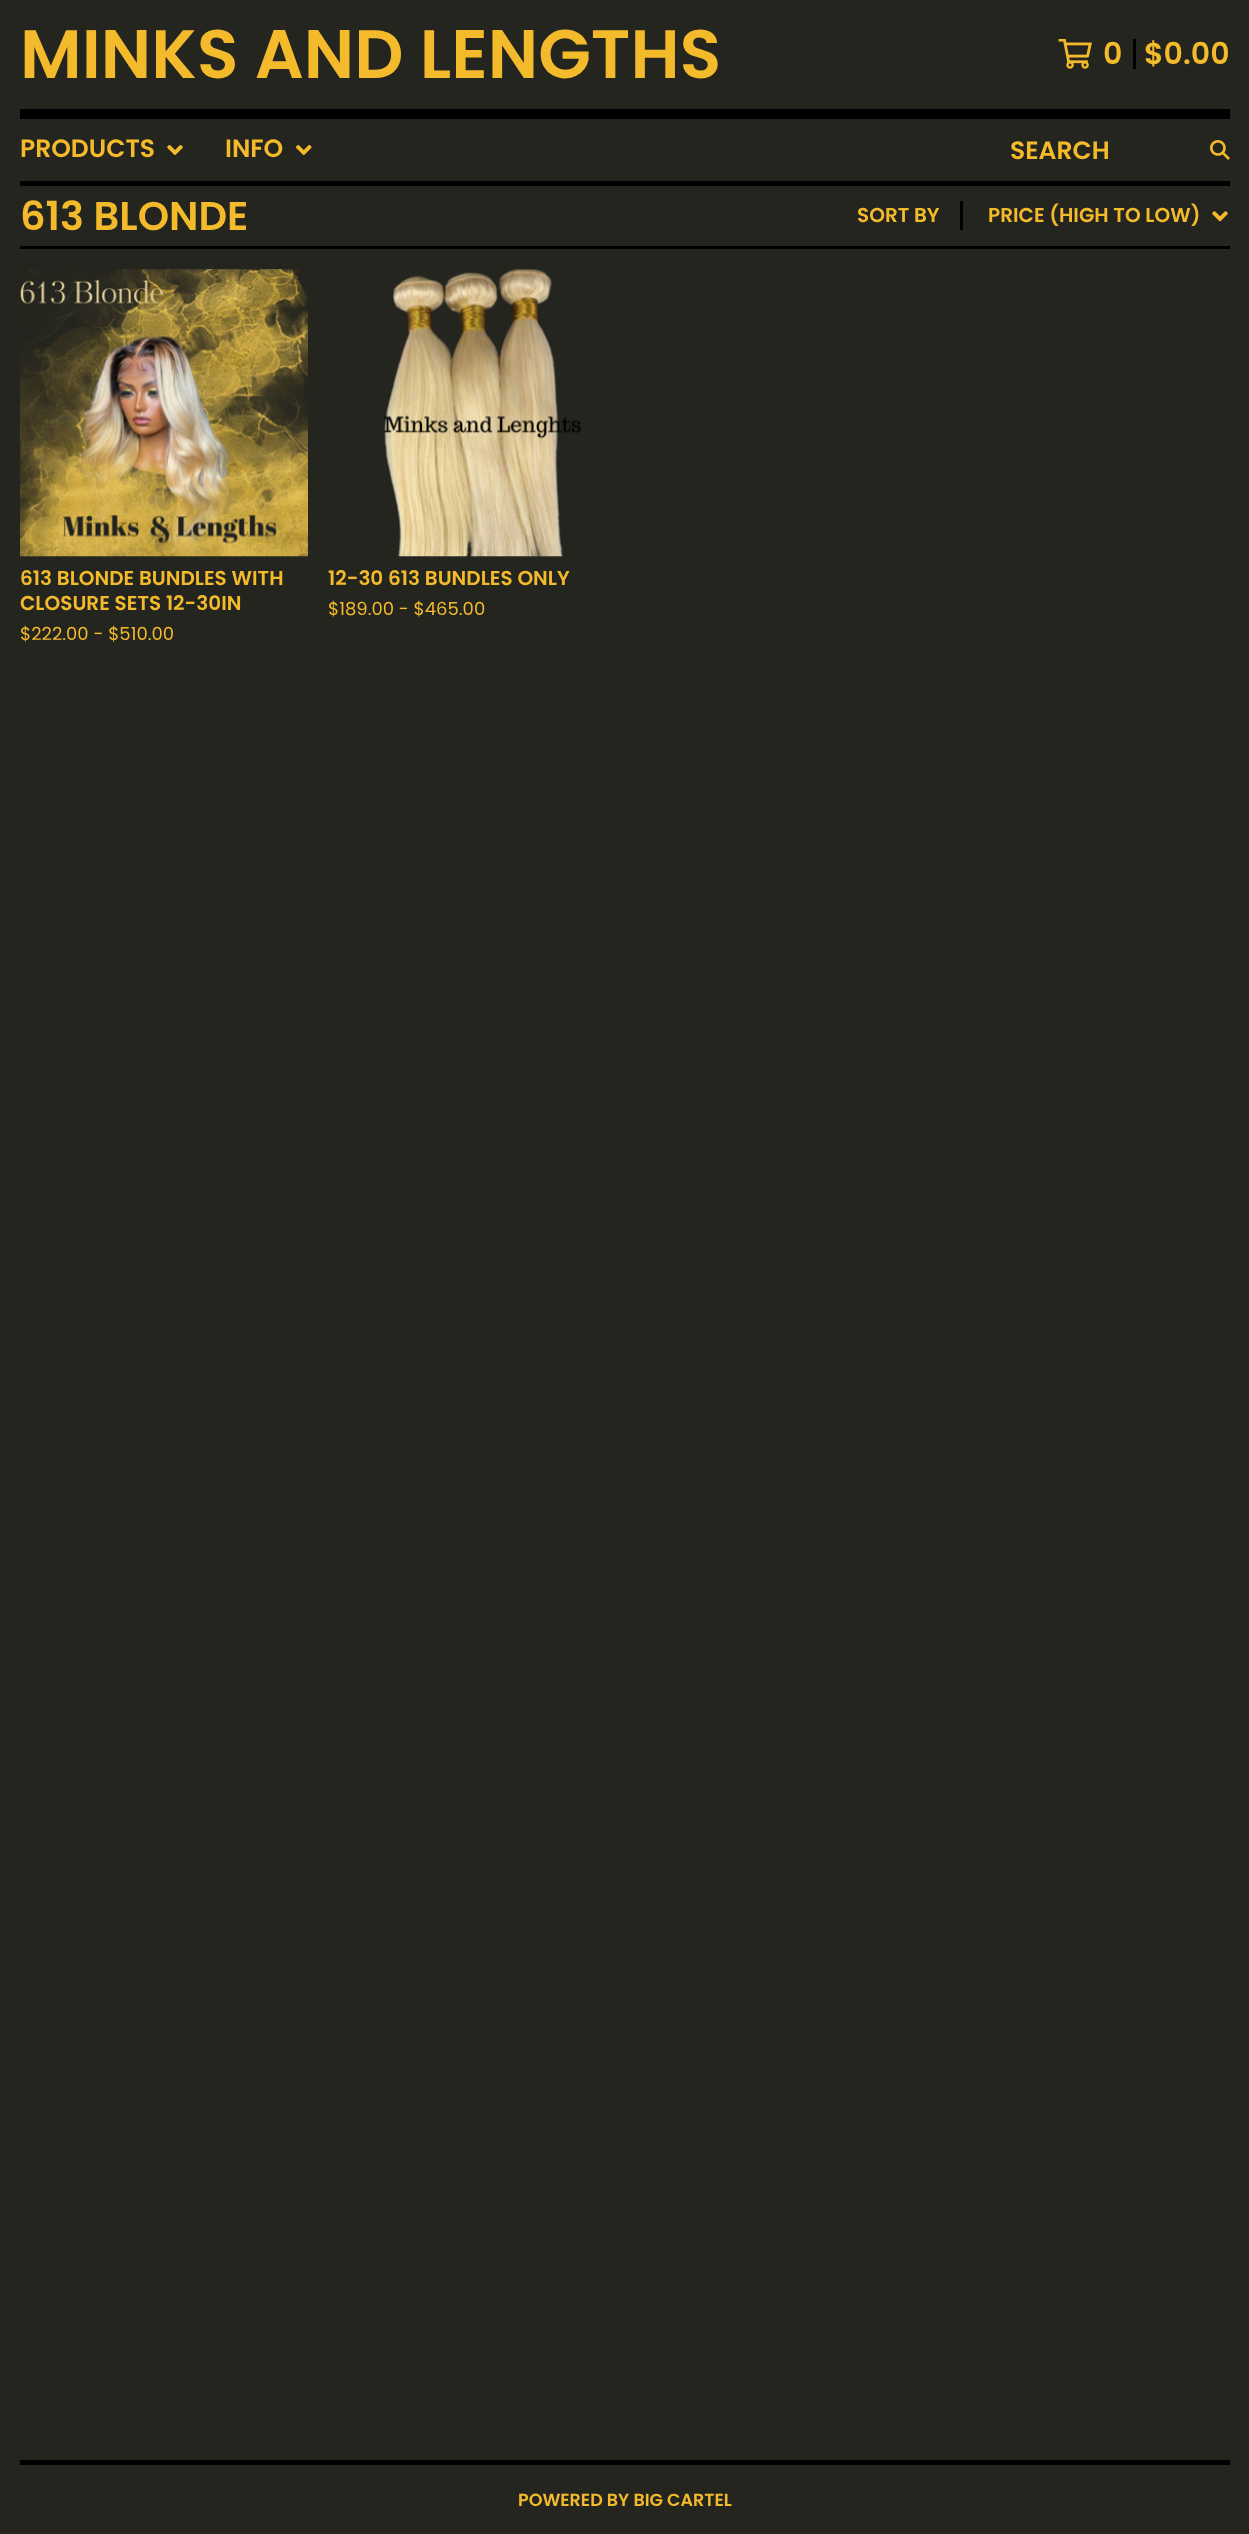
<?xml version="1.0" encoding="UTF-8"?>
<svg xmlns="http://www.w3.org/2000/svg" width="1249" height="2534">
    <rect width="100%" height="100%" fill="#25251F"/>
    <rect x="20" y="109" width="1210" height="10" fill="#000000"/>
    <text x="20" y="78" font-family="Poppins" font-size="68.6" font-weight="600" fill="#F3BA2B">MINKS AND LENGTHS</text>
    <image x="1058" y="39" width="34" height="30" href="img_01.png"/>
    <rect x="1133" y="39" width="3" height="30" fill="#000000"/>
    <text x="1103" y="64" font-family="Poppins" font-size="30" font-weight="600" fill="#F3BA2B">0</text>
    <text x="1144" y="64" font-family="Poppins" font-size="30" font-weight="600" fill="#F3BA2B">$0.00</text>
    <rect x="20" y="181" width="1210" height="5" fill="#000000"/>
    <text x="20" y="157" font-family="Poppins" font-size="25" font-weight="600" fill="#F3BA2B">PRODUCTS</text>
    <image x="167" y="145" width="16" height="10" href="img_02.png"/>
    <text x="225" y="157" font-family="Poppins" font-size="25" font-weight="600" fill="#F3BA2B">INFO</text>
    <image x="295" y="145" width="17" height="10" href="img_03.png"/>
    <text x="1010" y="159" font-family="Poppins" font-size="25" font-weight="600" fill="#F3BA2B">SEARCH</text>
    <image x="1210" y="140" width="20" height="20" href="img_04.png"/>
    <rect x="20" y="246" width="1210" height="3" fill="#000000"/>
    <text x="20" y="230" font-family="Poppins" font-size="40" font-weight="600" fill="#F3BA2B">613 BLONDE</text>
    <text x="857" y="222" font-family="Poppins" font-size="20" font-weight="600" fill="#F3BA2B">SORT BY</text>
    <rect x="960" y="201" width="3" height="29" fill="#000000"/>
    <text x="988" y="222" font-family="Poppins" font-size="20" font-weight="600" fill="#F3BA2B">PRICE (HIGH TO LOW)</text>
    <image x="1212" y="211" width="16" height="11" href="img_05.png"/>
    <image x="20" y="269" width="288" height="288" href="img_06.png"/>
    <text font-family="Poppins" font-size="20" font-weight="600" fill="#F3BA2B">
        <tspan x="20" y="585">613 BLONDE BUNDLES WITH</tspan>
        <tspan x="20" y="610">CLOSURE SETS 12-30IN</tspan>
    </text>
    <text x="20" y="640" font-family="Poppins" font-size="18" fill="#F3BA2B">$222.00 - $510.00</text>
    <image x="384" y="269" width="197" height="288" href="img_07.png"/>
    <text x="328" y="585" font-family="Poppins" font-size="20" font-weight="600" fill="#F3BA2B">12-30 613 BUNDLES ONLY</text>
    <text x="328" y="615" font-family="Poppins" font-size="18" fill="#F3BA2B">$189.00 - $465.00</text>
    <rect x="20" y="2460" width="1210" height="5" fill="#000000"/>
    <text x="518" y="2506" font-family="Poppins" font-size="17.5" font-weight="600" fill="#F3BA2B">POWERED BY BIG CARTEL</text>
</svg>
